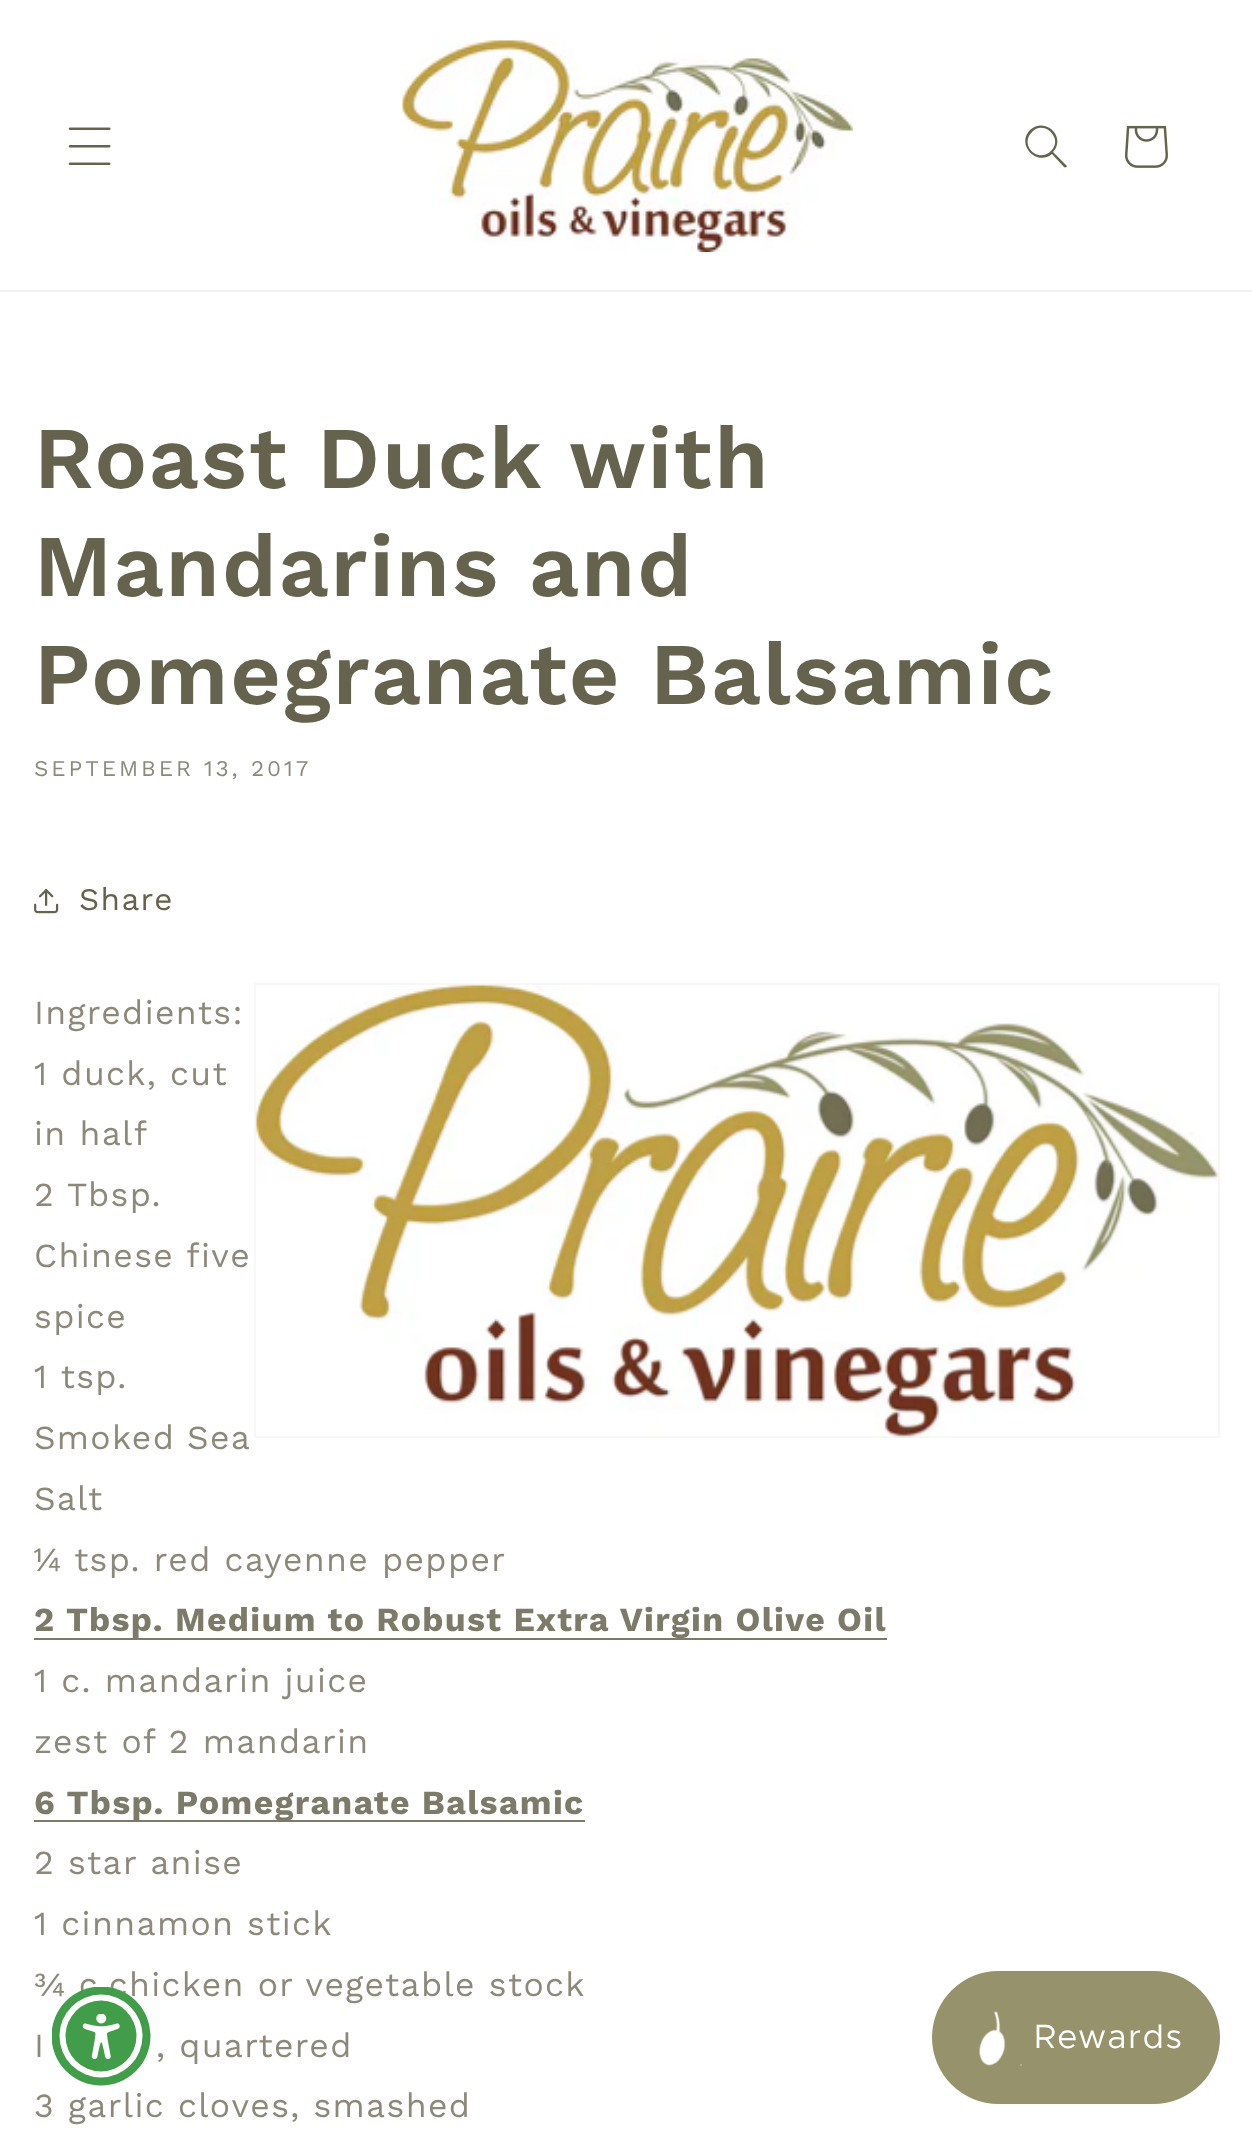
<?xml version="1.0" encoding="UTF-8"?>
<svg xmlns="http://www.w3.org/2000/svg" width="1252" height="2137">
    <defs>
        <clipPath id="clip1"><rect x="52" y="1987" width="101" height="101"/></clipPath>
    </defs>
    <rect width="100%" height="100%" fill="#FFFFFF"/>
    <rect x="0" y="290" width="1252" height="2" fill="#F3F2F1"/>
    <image x="68" y="127" width="43" height="38" href="img_01.png"/>
    <image x="402" y="40" width="451" height="212" href="img_02.png"/>
    <path d="M 1051 151 C 1038 164 1019 145 1032 132 C 1044 119 1064 139 1051 151 M 1052 154 C 1036 167 1016 144 1030 130 C 1045 116 1067 137 1053 152 L 1067 166 C 1067 167 1065 168 1064 167 Z" fill="#65624D" fill-rule="evenodd"/>
    <image x="1125" y="125" width="43" height="43" href="img_03.png"/>
    <text font-family="Work Sans" font-size="87.75" font-weight="600" letter-spacing="1.75" fill="#65624D">
        <tspan x="34" y="488">Roast Duck with</tspan>
        <tspan x="34" y="596">Mandarins and</tspan>
        <tspan x="34" y="704">Pomegranate Balsamic</tspan>
    </text>
    <text x="34" y="776" font-family="Work Sans" font-size="22.5" letter-spacing="2.9" fill="#8C897A">SEPTEMBER 13, 2017</text>
    <image x="34" y="889" width="25" height="25" href="img_04.png"/>
    <text x="79" y="910" font-family="Work Sans" font-size="31.5" letter-spacing="1.35" fill="#65624D">Share</text>
    <text x="34" y="1024" font-family="Work Sans" font-size="33.75" letter-spacing="1.35" fill="#8C897A">Ingredients:</text>
    <rect x="255" y="984" width="964" height="453" fill="none" stroke="#F7F7F6" stroke-width="2"/>
    <image x="255" y="984" width="964" height="454" href="img_05.png"/>
    <text font-family="Work Sans" font-size="33.75" letter-spacing="1.35" fill="#8C897A">
        <tspan x="34" y="1085">1 duck, cut</tspan>
        <tspan x="34" y="1145">in half</tspan>
        <tspan x="34" y="1206">2 Tbsp.</tspan>
        <tspan x="34" y="1267">Chinese five</tspan>
        <tspan x="34" y="1328">spice</tspan>
        <tspan x="34" y="1388">1 tsp.</tspan>
        <tspan x="34" y="1449" word-spacing="-1">Smoked Sea</tspan>
        <tspan x="34" y="1510">Salt</tspan>
        <tspan x="34" y="1571">¼ tsp. red cayenne pepper</tspan>
    </text>
    <rect x="34" y="1638" width="853" height="2" fill="#7C7A68"/>
    <text x="34" y="1631" font-family="Work Sans" font-size="33.75" font-weight="700" letter-spacing="1.35" fill="#7C7A68">2 Tbsp. Medium to Robust Extra Virgin Olive Oil</text>
    <text font-family="Work Sans" font-size="33.75" letter-spacing="1.35" fill="#8C897A">
        <tspan x="34" y="1692">1 c. mandarin juice</tspan>
        <tspan x="34" y="1753">zest of 2 mandarin</tspan>
    </text>
    <rect x="34" y="1820" width="551" height="2" fill="#7C7A68"/>
    <text x="34" y="1814" font-family="Work Sans" font-size="33.75" font-weight="700" letter-spacing="1.35" fill="#7C7A68">6 Tbsp. Pomegranate Balsamic</text>
    <text font-family="Work Sans" font-size="33.75" letter-spacing="1.35" fill="#8C897A">
        <tspan x="34" y="1874">2 star anise</tspan>
        <tspan x="34" y="1935">1 cinnamon stick</tspan>
        <tspan x="34" y="1996">¾ c.chicken or vegetable stock</tspan>
        <tspan x="34" y="2057">I</tspan>
    </text>
    <text x="156" y="2057" font-family="Work Sans" font-size="33.75" letter-spacing="1.35" fill="#8C897A">, quartered</text>
    <text x="34" y="2117" font-family="Work Sans" font-size="33.75" letter-spacing="1.35" fill="#8C897A">3 garlic cloves, smashed</text>
    <g clip-path="url(#clip1)">
        <circle cx="101" cy="2036" r="49.5" fill="#419D4A"/>
    </g>
    <circle cx="101" cy="2036" r="41.5" fill="#FFFFFF"/>
    <circle cx="101" cy="2036" r="35.5" fill="#419D4A"/>
    <image x="82" y="2014" width="38" height="45" href="img_06.png"/>
    <rect x="932" y="1971" width="288" height="133" rx="66.5" fill="#95926C"/>
    <image x="979" y="2011" width="43" height="55" href="img_07.png"/>
    <text x="1034" y="2048" font-family="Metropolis" font-size="33.75" letter-spacing="1.35" fill="#FFFFFF">Rewards</text>
</svg>
